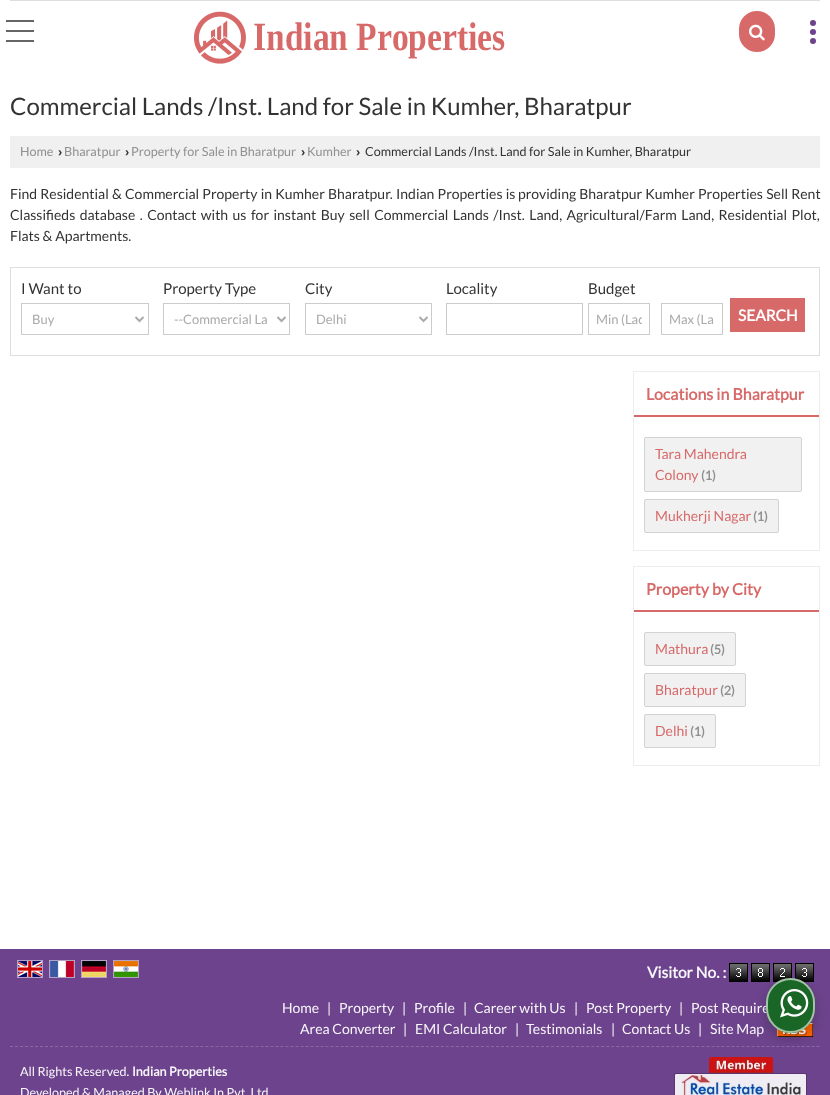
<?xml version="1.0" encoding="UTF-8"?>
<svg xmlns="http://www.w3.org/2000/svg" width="830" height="1095">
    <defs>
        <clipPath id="clip1"><rect x="596" y="311" width="46" height="16"/></clipPath>
        <filter id="blur1" x="-50%" y="-200%" width="200%" height="500%"><feGaussianBlur stdDeviation="4"/></filter>
    </defs>
    <rect width="100%" height="100%" fill="#FFFFFF"/>
    <rect x="10" y="0" width="810" height="1" fill="#DEDEDE"/>
    <circle cx="813" cy="32" r="3" fill="#6C438C"/>
    <circle cx="813" cy="23" r="3" fill="#6C438C"/>
    <circle cx="813" cy="41" r="3" fill="#6C438C"/>
    <rect x="6" y="30" width="28" height="2" fill="#666666"/>
    <rect x="6" y="20" width="28" height="2" fill="#666666"/>
    <rect x="6" y="40" width="28" height="2" fill="#666666"/>
    <rect x="739" y="11" width="36" height="41" rx="18" fill="#D86969"/>
    <image x="749" y="24" width="16" height="17" href="img_01.png"/>
    <image x="194" y="11" width="311" height="53" href="img_02.png"/>
    <text x="10" y="115" font-family="Lato" font-size="24" fill="#333333">Commercial Lands /Inst. Land for Sale in Kumher, Bharatpur</text>
    <rect x="10" y="136" width="810" height="32" fill="#F0F0F0"/>
    <text x="20" y="156" font-family="Lato" font-size="12.6" fill="#909090">Home</text>
    <text x="58" y="156" font-family="Liberation Sans" font-size="12.6" font-weight="700" fill="#333333">›</text>
    <text x="64" y="156" font-family="Lato" font-size="12.6" fill="#909090">Bharatpur</text>
    <text x="125" y="156" font-family="Liberation Sans" font-size="12.6" font-weight="700" fill="#333333">›</text>
    <text x="131" y="156" font-family="Lato" font-size="12.6" fill="#909090">Property for Sale in Bharatpur</text>
    <text x="301" y="156" font-family="Liberation Sans" font-size="12.6" font-weight="700" fill="#333333">›</text>
    <text x="307" y="156" font-family="Lato" font-size="12.6" fill="#909090">Kumher</text>
    <text x="356" y="156" font-family="Liberation Sans" font-size="12.6" font-weight="700" fill="#333333">›</text>
    <text x="365" y="156" font-family="Lato" font-size="12.6" fill="#333333">Commercial Lands /Inst. Land for Sale in Kumher, Bharatpur</text>
    <text x="10" y="199" word-spacing="0.5" font-family="Lato" font-size="14" fill="#333333">Find Residential &amp; Commercial Property in Kumher Bharatpur. Indian Properties is</text>
    <text x="518" y="199" word-spacing="0.5" font-family="Lato" font-size="14" fill="#333333">providing Bharatpur Kumher Properties Sell Rent</text>
    <text font-family="Lato" font-size="14" fill="#333333">
        <tspan x="10" y="220" word-spacing="1.75">Classifieds database . Contact with us for instant Buy sell Commercial Lands /Inst. Land, Agricultural/Farm Land, Residential Plot,</tspan>
        <tspan x="10" y="241">Flats &amp; Apartments.</tspan>
    </text>
    <rect x="10.5" y="267.5" width="809" height="88" fill="none" stroke="#DEDEDE"/>
    <text x="21" y="294" font-family="Lato" font-size="15" fill="#333333">I Want to</text>
    <rect x="21.5" y="303.5" width="127" height="31" fill="none" stroke="#CCCCCC"/>
    <path d="M 135.5 317 L 139.5 321 L 143.5 317" fill="none" stroke="#AAAAAA" stroke-width="2"/>
    <text x="32" y="324" font-family="Lato" font-size="13" fill="#AAAAAA">Buy</text>
    <text x="163" y="294" font-family="Lato" font-size="15" fill="#333333">Property Type</text>
    <rect x="163.5" y="303.5" width="126" height="31" fill="none" stroke="#CCCCCC"/>
    <path d="M 277.5 317 L 281.5 321 L 285.5 317" fill="none" stroke="#AAAAAA" stroke-width="2"/>
    <text x="174" y="324" font-family="Lato" font-size="13" fill="#AAAAAA">--Commercial La</text>
    <text x="305" y="294" font-family="Lato" font-size="15" fill="#333333">City</text>
    <rect x="305.5" y="303.5" width="126" height="31" fill="none" stroke="#CCCCCC"/>
    <path d="M 419.5 317 L 423.5 321 L 427.5 317" fill="none" stroke="#AAAAAA" stroke-width="2"/>
    <text x="316" y="324" font-family="Lato" font-size="13" fill="#AAAAAA">Delhi</text>
    <text x="446" y="294" font-family="Lato" font-size="15" fill="#333333">Locality</text>
    <rect x="446.5" y="303.5" width="136" height="31" fill="none" stroke="#CCCCCC"/>
    <text x="588" y="294" font-family="Lato" font-size="15" fill="#333333">Budget</text>
    <rect x="588.5" y="303.5" width="61" height="31" fill="none" stroke="#CCCCCC"/>
    <g clip-path="url(#clip1)">
        <text x="596" y="324" font-family="Lato" font-size="13" fill="#AAAAAA">Min (Lac</text>
    </g>
    <rect x="661.5" y="303.5" width="61" height="31" fill="none" stroke="#CCCCCC"/>
    <text x="669" y="324" font-family="Lato" font-size="13" fill="#AAAAAA">Max (La</text>
    <rect x="730" y="298" width="75" height="34" fill="#D86969"/>
    <text x="738" y="321" font-family="Lato" font-size="15.5" font-weight="700" fill="#FFFFFF">SEARCH</text>
    <rect x="633.5" y="371.5" width="186" height="179" fill="none" stroke="#EDEDED"/>
    <rect x="634" y="415" width="185" height="2" fill="#D86969"/>
    <text x="646" y="400" font-family="Lato" font-size="16" font-weight="700" fill="#D86969">Locations in Bharatpur</text>
    <rect x="644.5" y="437.5" width="157" height="54" rx="1.5" fill="#F1F1F1" stroke="#D2D2D2"/>
    <text font-family="Lato" font-size="14" fill="#D86969">
        <tspan x="655" y="459">Tara Mahendra</tspan>
        <tspan x="655" y="480">Colony</tspan>
    </text>
    <text x="701" y="480" font-family="Lato" font-size="12.6" font-weight="700" fill="#909090">(1)</text>
    <rect x="644.5" y="499.5" width="134" height="33" rx="1.5" fill="#F1F1F1" stroke="#D2D2D2"/>
    <text x="655" y="521" font-family="Lato" font-size="14" fill="#D86969">Mukherji Nagar</text>
    <text x="753" y="521" font-family="Lato" font-size="12.6" font-weight="700" fill="#909090">(1)</text>
    <rect x="633.5" y="566.5" width="186" height="199" fill="none" stroke="#EDEDED"/>
    <rect x="634" y="610" width="185" height="2" fill="#D86969"/>
    <text x="646" y="595" font-family="Lato" font-size="16" font-weight="700" fill="#D86969">Property by City</text>
    <rect x="644.5" y="632.5" width="91" height="33" rx="1.5" fill="#F1F1F1" stroke="#D2D2D2"/>
    <text x="655" y="654" font-family="Lato" font-size="14" fill="#D86969">Mathura</text>
    <text x="710" y="654" font-family="Lato" font-size="12.6" font-weight="700" fill="#909090">(5)</text>
    <rect x="644.5" y="673.5" width="101" height="33" rx="1.5" fill="#F1F1F1" stroke="#D2D2D2"/>
    <text x="655" y="695" font-family="Lato" font-size="14" fill="#D86969">Bharatpur</text>
    <text x="720" y="695" font-family="Lato" font-size="12.6" font-weight="700" fill="#909090">(2)</text>
    <rect x="644.5" y="714.5" width="71" height="33" rx="1.5" fill="#F1F1F1" stroke="#D2D2D2"/>
    <text x="655" y="736" font-family="Lato" font-size="14" fill="#D86969">Delhi</text>
    <text x="690" y="736" font-family="Lato" font-size="12.6" font-weight="700" fill="#909090">(1)</text>
    <rect x="0" y="949" width="830" height="146" fill="#6C438C"/>
    <rect x="17.5" y="960.5" width="25" height="17" fill="none" stroke="#B6A1C6"/>
    <rect x="49.5" y="960.5" width="25" height="17" fill="none" stroke="#B6A1C6"/>
    <rect x="81.5" y="960.5" width="25" height="17" fill="none" stroke="#B6A1C6"/>
    <rect x="113.5" y="960.5" width="25" height="17" fill="none" stroke="#B6A1C6"/>
    <image x="18" y="961" width="24" height="16" href="img_03.png"/>
    <image x="50" y="961" width="24" height="16" href="img_04.png"/>
    <image x="82" y="961" width="24" height="16" href="img_05.png"/>
    <image x="114" y="961" width="24" height="16" href="img_06.png"/>
    <text x="647" y="978" font-family="Lato" font-size="15.5" font-weight="700" fill="#F8F6F9">Visitor No. :</text>
    <image x="729" y="963" width="19" height="19" href="img_07.png"/>
    <image x="751" y="963" width="19" height="19" href="img_08.png"/>
    <image x="773" y="963" width="19" height="19" href="img_09.png"/>
    <image x="795" y="963" width="19" height="19" href="img_07.png"/>
    <text x="282" y="1013" font-family="Lato" font-size="14" fill="#F8F6F9">Home</text>
    <text x="327" y="1013" font-family="Lato" font-size="14" fill="#F8F6F9">|</text>
    <text x="339" y="1013" font-family="Lato" font-size="14" fill="#F8F6F9">Property</text>
    <text x="402" y="1013" font-family="Lato" font-size="14" fill="#F8F6F9">|</text>
    <text x="414" y="1013" font-family="Lato" font-size="14" fill="#F8F6F9">Profile</text>
    <text x="463" y="1013" font-family="Lato" font-size="14" fill="#F8F6F9">|</text>
    <text x="474" y="1013" font-family="Lato" font-size="14" fill="#F8F6F9">Career with Us</text>
    <text x="574" y="1013" font-family="Lato" font-size="14" fill="#F8F6F9">|</text>
    <text x="586" y="1013" font-family="Lato" font-size="14" fill="#F8F6F9">Post Property</text>
    <text x="679" y="1013" font-family="Lato" font-size="14" fill="#F8F6F9">|</text>
    <text x="691" y="1013" font-family="Lato" font-size="14" fill="#F8F6F9">Post Require</text>
    <text x="300" y="1034" font-family="Lato" font-size="14" fill="#F8F6F9">Area Converter</text>
    <text x="403" y="1034" font-family="Lato" font-size="14" fill="#F8F6F9">|</text>
    <text x="415" y="1034" font-family="Lato" font-size="14" fill="#F8F6F9">EMI Calculator</text>
    <text x="515" y="1034" font-family="Lato" font-size="14" fill="#F8F6F9">|</text>
    <text x="526" y="1034" font-family="Lato" font-size="14" fill="#F8F6F9">Testimonials</text>
    <text x="611" y="1034" font-family="Lato" font-size="14" fill="#F8F6F9">|</text>
    <text x="622" y="1034" font-family="Lato" font-size="14" fill="#F8F6F9">Contact Us</text>
    <text x="698" y="1034" font-family="Lato" font-size="14" fill="#F8F6F9">|</text>
    <text x="710" y="1034" font-family="Lato" font-size="14" fill="#F8F6F9">Site Map</text>
    <image x="777" y="1023" width="36" height="14" href="img_10.png"/>
    <path d="M 10 1046.5 H 820" fill="none" stroke="#8969A3" stroke-dasharray="3 2.01"/>
    <text x="20" y="1076" font-family="Lato" font-size="12.6" fill="#F8F6F9">All Rights Reserved.</text>
    <text x="132" y="1076" font-family="Lato" font-size="12.6" font-weight="700" fill="#F8F6F9">Indian Properties</text>
    <text x="20" y="1097" font-family="Lato" font-size="12.6" fill="#F8F6F9">Developed &amp; Managed By Weblink.In Pvt. Ltd</text>
    <image x="674" y="1057" width="133" height="38" href="img_11.png"/>
    <rect x="764" y="982" width="53" height="59" rx="26.5" fill="#000000" fill-opacity="0.14" filter="url(#blur1)"/>
    <rect x="766" y="978" width="49" height="55" rx="24.5" fill="#196626"/>
    <rect x="767" y="979" width="47" height="53" rx="23.5" fill="none" stroke="#FFFFFF" stroke-opacity="0.6" stroke-width="2"/>
    <image x="780" y="989" width="29" height="29" href="img_12.png"/>
</svg>
